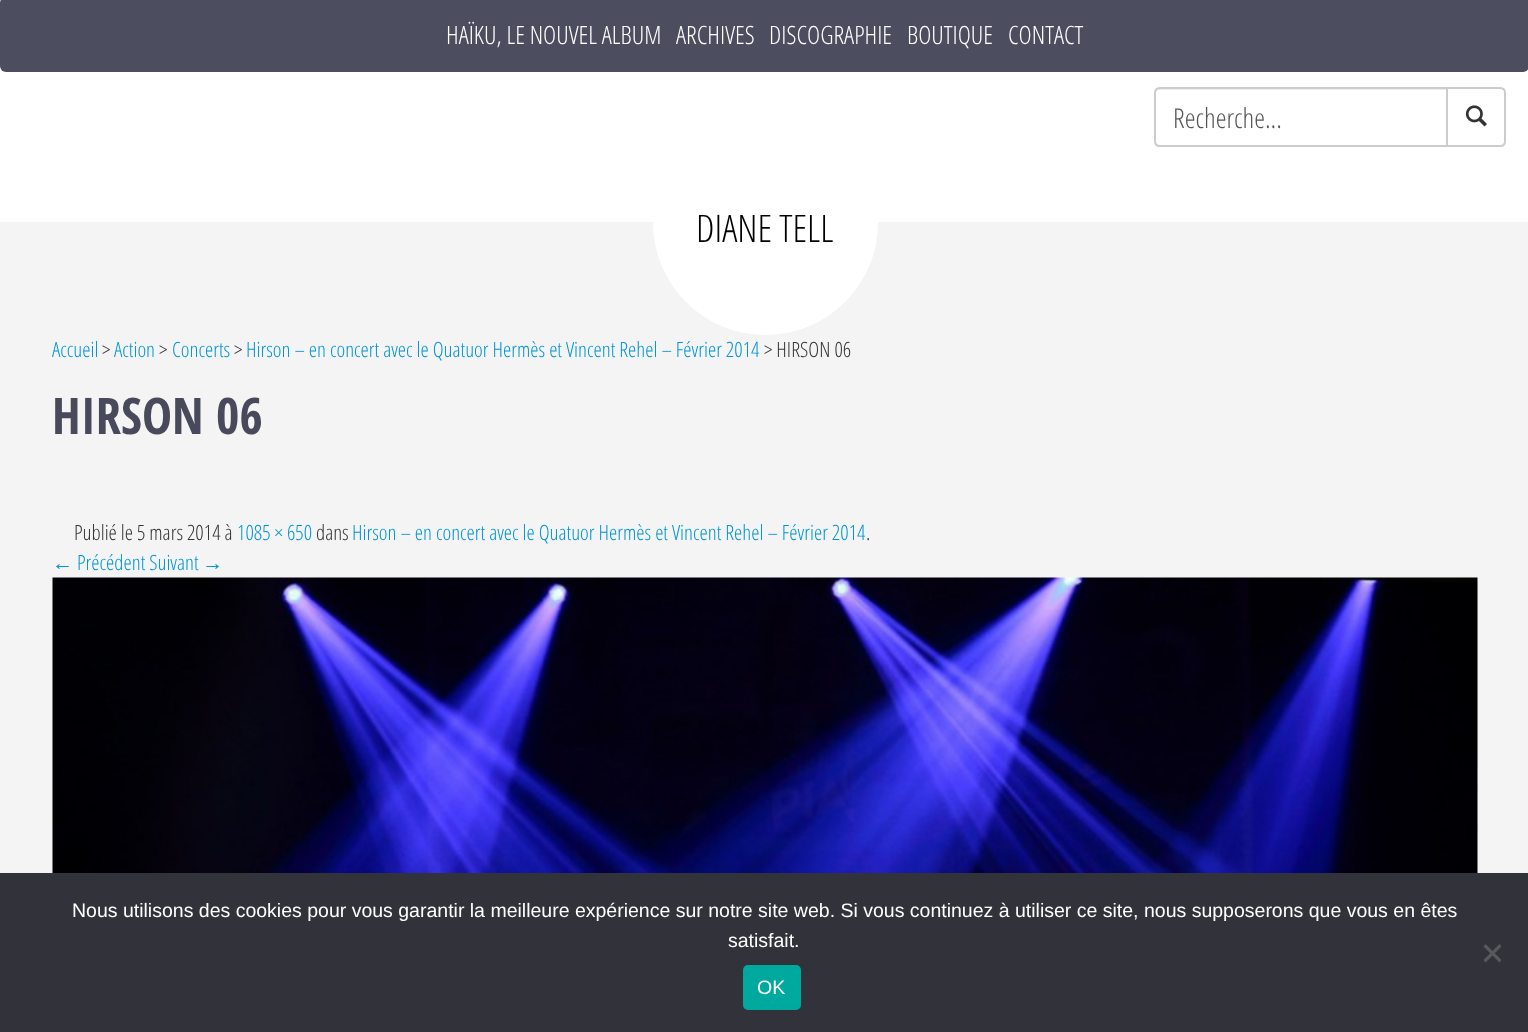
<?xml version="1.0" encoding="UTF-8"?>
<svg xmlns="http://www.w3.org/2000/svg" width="1528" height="1032">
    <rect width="100%" height="100%" fill="#F4F4F4"/>
    <rect x="0" y="0" width="1528" height="222" fill="#FFFFFF"/>
    <rect x="0" y="-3" width="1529" height="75" rx="6" fill="#4C4D5F"/>
    <text x="446" y="44" font-family="Open Sans Condensed" font-size="25.25" font-weight="300" fill="#FFFFFF">HAÏKU, LE NOUVEL ALBUM</text>
    <text x="676" y="44" font-family="Open Sans Condensed" font-size="25.25" font-weight="300" fill="#FFFFFF">ARCHIVES</text>
    <text x="769" y="44" font-family="Open Sans Condensed" font-size="25.25" font-weight="300" fill="#FFFFFF">DISCOGRAPHIE</text>
    <text x="907" y="44" font-family="Open Sans Condensed" font-size="25.25" font-weight="300" fill="#FFFFFF">BOUTIQUE</text>
    <text x="1008" y="44" font-family="Open Sans Condensed" font-size="25.25" font-weight="300" fill="#FFFFFF">CONTACT</text>
    <path d="M 1447 88 H 1500 C 1503 88 1505 90 1505 93 V 141 C 1505 144 1503 146 1500 146 H 1447 Z" fill="none" stroke="#CCCCCC" stroke-width="2"/>
    <path d="M 1160 87 H 1448 V 147 H 1160 C 1156.5 147 1154 144.5 1154 141 V 93 C 1154 89.5 1156.5 87 1160 87 Z" fill="#FFFFFF"/>
    <path d="M 1160 90 H 1446 V 89 H 1160 C 1157 89 1155 91 1155 94 C 1155 92 1157 90 1160 90 Z" fill="#ECECEC"/>
    <path d="M 1160 88 H 1447 V 146 H 1160 C 1157 146 1155 144 1155 141 V 93 C 1155 90 1157 88 1160 88 Z" fill="none" stroke="#CCCCCC" stroke-width="2"/>
    <text x="1173" y="128" font-family="Open Sans Condensed" font-size="27.5" font-weight="300" fill="#555555">Recherche...</text>
    <image x="1465" y="105" width="22" height="22" href="img_01.png"/>
    <circle cx="765.5" cy="222.5" r="112.5" fill="#FFFFFF"/>
    <text x="696" y="242" font-family="Open Sans Condensed" font-size="38" font-weight="300" fill="#000000">DIANE TELL</text>
    <text x="52" y="357" font-family="Open Sans Condensed" font-size="21" font-weight="300" fill="#0195D3">Accueil</text>
    <text x="102" y="357" font-family="Open Sans Condensed" font-size="21" font-weight="300" fill="#333333">&gt;</text>
    <text x="114" y="357" font-family="Open Sans Condensed" font-size="21" font-weight="300" fill="#0195D3">Action</text>
    <text x="159" y="357" font-family="Open Sans Condensed" font-size="21" font-weight="300" fill="#333333">&gt;</text>
    <text x="172" y="357" font-family="Open Sans Condensed" font-size="21" font-weight="300" fill="#0195D3">Concerts</text>
    <text x="234" y="357" font-family="Open Sans Condensed" font-size="21" font-weight="300" fill="#333333">&gt;</text>
    <text x="246" y="357" font-family="Open Sans Condensed" font-size="21" font-weight="300" fill="#0195D3">Hirson – en concert avec le Quatuor Hermès et Vincent Rehel – Février 2014</text>
    <text x="764" y="357" font-family="Open Sans Condensed" font-size="21" font-weight="300" fill="#333333">&gt; HIRSON 06</text>
    <text x="52" y="434" font-family="Open Sans Condensed" font-size="50.5" font-weight="700" fill="#48495B">HIRSON 06</text>
    <text x="74" y="540" font-family="Open Sans Condensed" font-size="21" font-weight="300" fill="#333333">Publié le 5 mars 2014 à</text>
    <text x="237" y="540" font-family="Open Sans Condensed" font-size="21" font-weight="300" fill="#0195D3">1085 × 650</text>
    <text x="316" y="540" font-family="Open Sans Condensed" font-size="21" font-weight="300" fill="#333333">dans</text>
    <text x="352" y="540" font-family="Open Sans Condensed" font-size="21" font-weight="300" fill="#0195D3">Hirson – en concert avec le Quatuor Hermès et Vincent Rehel – Février 2014</text>
    <text x="866" y="540" font-family="Open Sans Condensed" font-size="21" font-weight="300" fill="#333333">.</text>
    <text x="52" y="570" font-family="Liberation Sans" font-size="21" fill="#0195D3">←</text>
    <text x="77" y="570" font-family="Open Sans Condensed" font-size="21" font-weight="300" fill="#0195D3">Précédent Suivant</text>
    <text x="202" y="570" font-family="Liberation Sans" font-size="21" fill="#0195D3">→</text>
    <image x="52" y="577" width="1426" height="296" href="img_02.png"/>
    <rect x="0" y="873" width="1528" height="159" fill="#32323A"/>
    <text x="72" y="917" font-family="Liberation Sans" font-size="19.5" fill="#FFFFFF">Nous utilisons des cookies pour vous garantir la meilleure expérience sur notre site web. Si vous continuez à utiliser ce site, nous supposerons que vous en êtes</text>
    <text x="728" y="947" font-family="Liberation Sans" font-size="19.5" fill="#FFFFFF">satisfait.</text>
    <path d="M 1499.5 944 L 1501.5 946.5 L 1485.5 962.5 L 1483.5 960 Z" fill="#59595D"/>
    <path d="M 1483.5 946.5 L 1485.5 944 L 1501.5 960 L 1499.5 962.5 Z" fill="#59595D"/>
    <rect x="743" y="965" width="58" height="45" rx="5" fill="#00A99D"/>
    <text x="757" y="994" font-family="Liberation Sans" font-size="19.5" fill="#FFFFFF">OK</text>
</svg>
